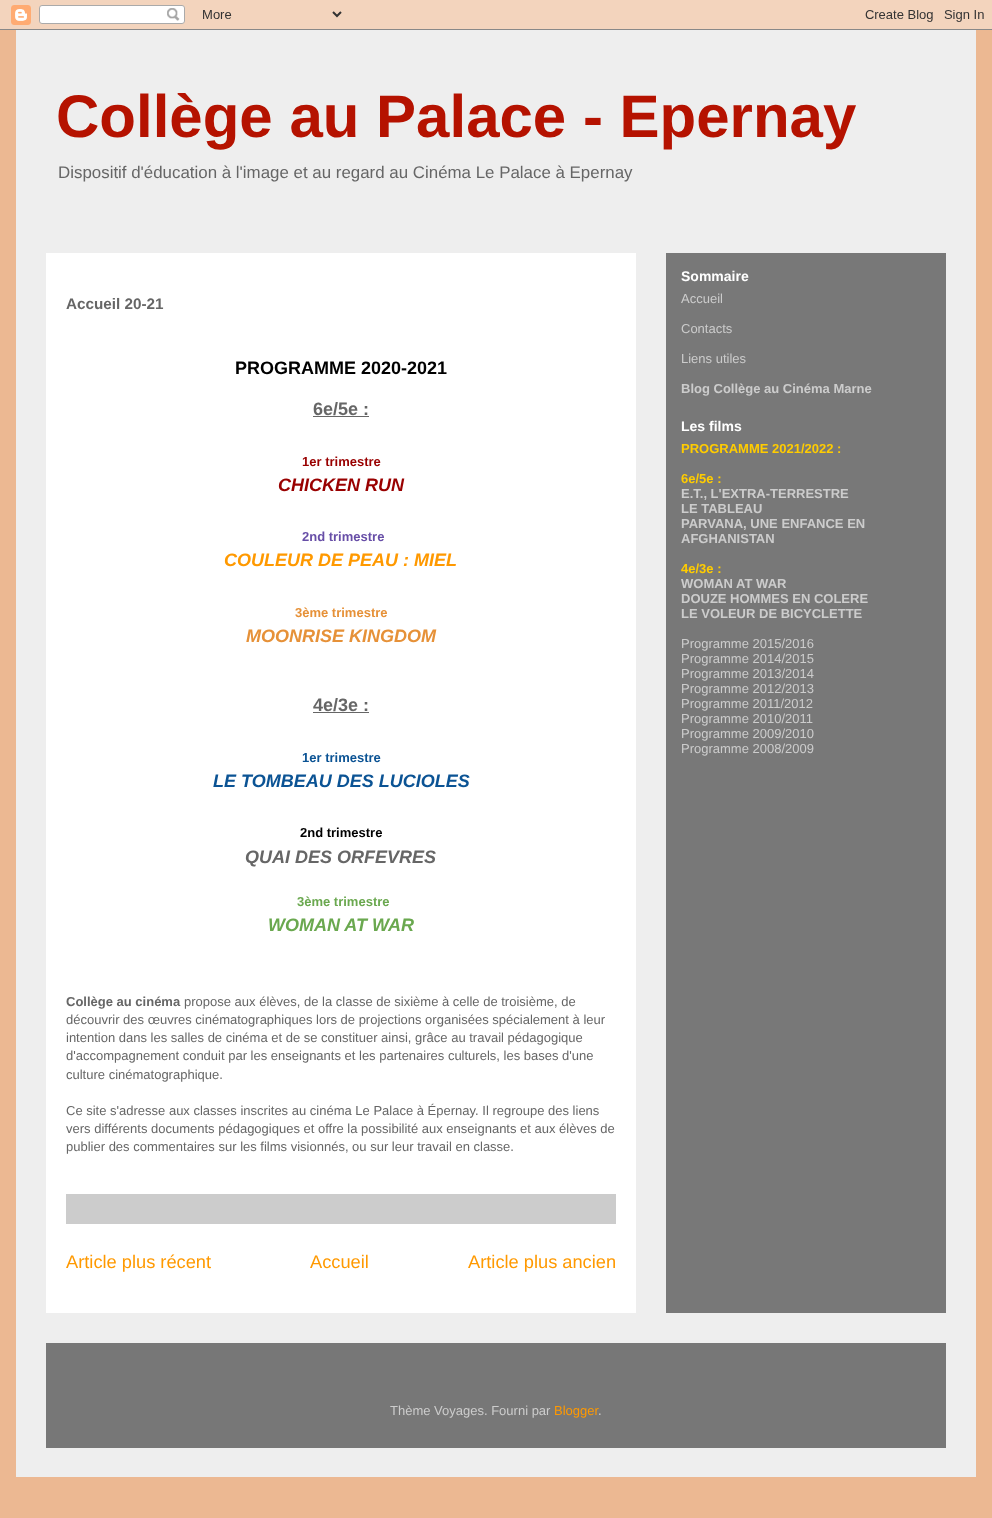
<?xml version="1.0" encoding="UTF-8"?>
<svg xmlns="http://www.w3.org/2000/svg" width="992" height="1518">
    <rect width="100%" height="100%" fill="#ECB892"/>
    <image x="0" y="0" width="992" height="30" href="img_01.png"/>
    <rect x="16" y="30" width="960" height="1447" fill="#EEEEEE"/>
    <text x="56" y="137" font-family="Liberation Sans" font-size="60" font-weight="700" fill="#B51200">Collège au Palace - Epernay</text>
    <text x="58" y="178" font-family="Liberation Sans" font-size="16.9" fill="#666666">Dispositif d'éducation à l'image et au regard au Cinéma Le Palace à Epernay</text>
    <rect x="666" y="253" width="280" height="1060" fill="#787878"/>
    <rect x="46" y="253" width="590" height="1060" fill="#FFFFFF"/>
    <text x="66" y="309" font-family="Liberation Sans" font-size="15.25" font-weight="700" fill="#666666">Accueil 20-21</text>
    <text x="235" y="374" font-family="Liberation Sans" font-size="18" font-weight="700" fill="#000000">PROGRAMME 2020-2021</text>
    <text x="313" y="415" font-family="Liberation Sans" font-size="18" font-weight="700" fill="#666666">6e/5e :</text>
    <rect x="313" y="416" width="56" height="1" fill="#666666"/>
    <text x="302" y="466" font-family="Liberation Sans" font-size="13" font-weight="700" fill="#990000">1er trimestre</text>
    <text x="278" y="491" font-family="Liberation Sans" font-size="18" font-weight="700" font-style="italic" fill="#990000">CHICKEN RUN</text>
    <text x="302" y="541" font-family="Liberation Sans" font-size="13" font-weight="700" fill="#674EA7">2nd trimestre</text>
    <text x="224" y="566" font-family="Liberation Sans" font-size="18" font-weight="700" font-style="italic" fill="#FF9900">COULEUR DE PEAU : MIEL</text>
    <text x="295" y="617" font-family="Liberation Sans" font-size="13" font-weight="700" fill="#E69138">3ème trimestre</text>
    <text x="246" y="642" font-family="Liberation Sans" font-size="18" font-weight="700" font-style="italic" fill="#E69138">MOONRISE KINGDOM</text>
    <text x="313" y="711" font-family="Liberation Sans" font-size="18" font-weight="700" fill="#666666">4e/3e :</text>
    <rect x="313" y="712" width="56" height="1" fill="#666666"/>
    <text x="302" y="762" font-family="Liberation Sans" font-size="13" font-weight="700" fill="#0B5394">1er trimestre</text>
    <text x="213" y="787" font-family="Liberation Sans" font-size="18" font-weight="700" font-style="italic" fill="#0B5394">LE TOMBEAU DES LUCIOLES</text>
    <text x="300" y="837" font-family="Liberation Sans" font-size="13" font-weight="700" fill="#000000">2nd trimestre</text>
    <text x="245" y="863" font-family="Liberation Sans" font-size="18" font-weight="700" font-style="italic" fill="#666666">QUAI DES ORFEVRES</text>
    <text x="297" y="906" font-family="Liberation Sans" font-size="13" font-weight="700" fill="#6AA84F">3ème trimestre</text>
    <text x="268" y="931" font-family="Liberation Sans" font-size="18" font-weight="700" font-style="italic" fill="#6AA84F">WOMAN AT WAR</text>
    <text x="66" y="1006" font-family="Liberation Sans" font-size="13" font-weight="700" fill="#666666">Collège au cinéma</text>
    <text x="184" y="1006" font-family="Liberation Sans" font-size="13" fill="#666666">propose aux élèves, de la classe de sixième à celle de troisième, de</text>
    <text font-family="Liberation Sans" font-size="13" fill="#666666">
        <tspan x="66" y="1024">découvrir des œuvres cinématographiques lors de projections organisées spécialement à leur</tspan>
        <tspan x="66" y="1042">intention dans les salles de cinéma et de se constituer ainsi, grâce au travail pédagogique</tspan>
        <tspan x="66" y="1060">d'accompagnement conduit par les enseignants et les partenaires culturels, les bases d'une</tspan>
        <tspan x="66" y="1079">culture cinématographique.</tspan>
    </text>
    <text font-family="Liberation Sans" font-size="13" fill="#666666">
        <tspan x="66" y="1115">Ce site s'adresse aux classes inscrites au cinéma Le Palace à Épernay. Il regroupe des liens</tspan>
        <tspan x="66" y="1133">vers différents documents pédagogiques et offre la possibilité aux enseignants et aux élèves de</tspan>
        <tspan x="66" y="1151">publier des commentaires sur les films visionnés, ou sur leur travail en classe.</tspan>
    </text>
    <rect x="66" y="1194" width="550" height="30" fill="#CCCCCC"/>
    <text x="66" y="1268" font-family="Liberation Sans" font-size="18.25" fill="#FF9900">Article plus récent</text>
    <text x="310" y="1268" font-family="Liberation Sans" font-size="18.25" fill="#FF9900">Accueil</text>
    <text x="468" y="1268" font-family="Liberation Sans" font-size="18.25" fill="#FF9900">Article plus ancien</text>
    <text x="681" y="281" font-family="Liberation Sans" font-size="14" font-weight="700" fill="#FFFFFF">Sommaire</text>
    <text x="681" y="303" font-family="Liberation Sans" font-size="13" fill="#CCCCCC">Accueil</text>
    <text x="681" y="333" font-family="Liberation Sans" font-size="13" fill="#CCCCCC">Contacts</text>
    <text x="681" y="363" font-family="Liberation Sans" font-size="13" fill="#CCCCCC">Liens utiles</text>
    <text x="681" y="393" font-family="Liberation Sans" font-size="13" font-weight="700" fill="#CCCCCC">Blog Collège au Cinéma Marne</text>
    <text x="681" y="431" font-family="Liberation Sans" font-size="14" font-weight="700" fill="#FFFFFF">Les films</text>
    <text x="681" y="453" font-family="Liberation Sans" font-size="13" font-weight="700" fill="#FFCC00">PROGRAMME 2021/2022 :</text>
    <text x="681" y="483" font-family="Liberation Sans" font-size="13" font-weight="700" fill="#FFCC00">6e/5e :</text>
    <text font-family="Liberation Sans" font-size="13" font-weight="700" fill="#CCCCCC">
        <tspan x="681" y="498">E.T., L'EXTRA-TERRESTRE</tspan>
        <tspan x="681" y="513">LE TABLEAU</tspan>
        <tspan x="681" y="528">PARVANA, UNE ENFANCE EN</tspan>
        <tspan x="681" y="543">AFGHANISTAN</tspan>
    </text>
    <text x="681" y="573" font-family="Liberation Sans" font-size="13" font-weight="700" fill="#FFCC00">4e/3e :</text>
    <text font-family="Liberation Sans" font-size="13" font-weight="700" fill="#CCCCCC">
        <tspan x="681" y="588">WOMAN AT WAR</tspan>
        <tspan x="681" y="603">DOUZE HOMMES EN COLERE</tspan>
        <tspan x="681" y="618">LE VOLEUR DE BICYCLETTE</tspan>
    </text>
    <text font-family="Liberation Sans" font-size="13" fill="#CCCCCC">
        <tspan x="681" y="648">Programme 2015/2016</tspan>
        <tspan x="681" y="663">Programme 2014/2015</tspan>
        <tspan x="681" y="678">Programme 2013/2014</tspan>
        <tspan x="681" y="693">Programme 2012/2013</tspan>
        <tspan x="681" y="708">Programme 2011/2012</tspan>
        <tspan x="681" y="723">Programme 2010/2011</tspan>
        <tspan x="681" y="738">Programme 2009/2010</tspan>
        <tspan x="681" y="753">Programme 2008/2009</tspan>
    </text>
    <rect x="46" y="1343" width="900" height="105" fill="#777777"/>
    <text x="390" y="1415" font-family="Liberation Sans" font-size="13" fill="#CCCCCC">Thème Voyages. Fourni par</text>
    <text x="554" y="1415" font-family="Liberation Sans" font-size="13" fill="#FF9900">Blogger</text>
    <text x="598" y="1415" font-family="Liberation Sans" font-size="13" fill="#CCCCCC">.</text>
</svg>
